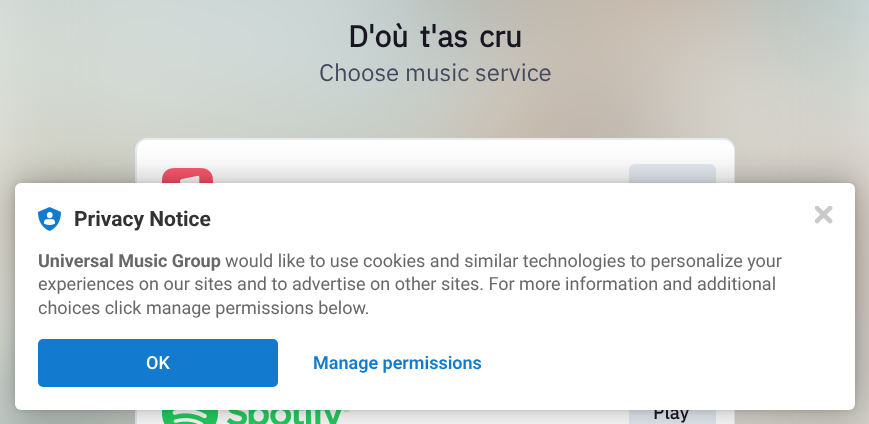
<?xml version="1.0" encoding="UTF-8"?>
<svg xmlns="http://www.w3.org/2000/svg" width="869" height="424">
    <defs>
        <filter id="blur1" x="-50%" y="-200%" width="200%" height="500%"><feGaussianBlur stdDeviation="3"/></filter>
        <filter id="blur2" x="-50%" y="-200%" width="200%" height="500%"><feGaussianBlur stdDeviation="18"/></filter>
    </defs>
    <rect width="100%" height="100%" fill="#FFFFFF"/>
    <image x="0" y="0" width="869" height="424" href="img_01.png"/>
    <text x="348" y="47" word-spacing="4" font-family="IBM Plex Sans" font-size="30" font-weight="700" fill="#181721">D'où t'as cru</text>
    <text x="319" y="81" font-family="IBM Plex Sans" font-size="24" fill="#454B5F">Choose music service</text>
    <rect x="136" y="139" width="598" height="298" rx="11" fill="#FFFFFF" stroke="#E6EAF2" stroke-width="2"/>
    <rect x="137" y="140" width="597" height="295" rx="11" fill="#FFFFFF"/>
    <image x="162" y="168" width="51" height="15" href="img_02.png"/>
    <rect x="629" y="164" width="87" height="60" rx="6" fill="#E6EAF2"/>
    <image x="162" y="410" width="188" height="14" href="img_03.png"/>
    <rect x="629" y="410" width="87" height="14" fill="#E6EAF2"/>
    <text x="653" y="419" font-family="IBM Plex Sans" font-size="18" font-weight="700" letter-spacing="0.5" fill="#181721">Play</text>
    <rect x="15" y="183" width="840" height="227" rx="6" fill="#000000" fill-opacity="0.12" filter="url(#blur1)"/>
    <rect x="15" y="183" width="840" height="227" rx="6" fill="#000000" fill-opacity="0.3" filter="url(#blur2)"/>
    <rect x="15" y="183" width="840" height="227" rx="6" fill="#FFFFFF"/>
    <image x="38" y="207" width="23" height="24" href="img_04.png"/>
    <text x="74" y="226" font-family="Roboto" font-size="21" font-weight="700" fill="#323232">Privacy Notice</text>
    <text x="38" y="267" font-family="Roboto" font-size="18" font-weight="700" fill="#686868">Universal Music Group</text>
    <text x="225" y="267" font-family="Roboto" font-size="18" fill="#686868">would like to use cookies and similar technologies to personalize your</text>
    <text font-family="Roboto" font-size="18" fill="#686868">
        <tspan x="38" y="290">experiences on our sites and to advertise on other sites. For more information and additional</tspan>
        <tspan x="38" y="314">choices click manage permissions below.</tspan>
    </text>
    <rect x="38" y="339" width="240" height="48" rx="5" fill="#137BCF"/>
    <text x="146" y="369" font-family="Roboto" font-size="18" font-weight="500" fill="#FFFFFF">OK</text>
    <text x="313" y="369" font-family="Roboto" font-size="18" font-weight="600" fill="#137BCF">Manage permissions</text>
    <image x="815" y="206" width="18" height="18" href="img_05.png"/>
</svg>
